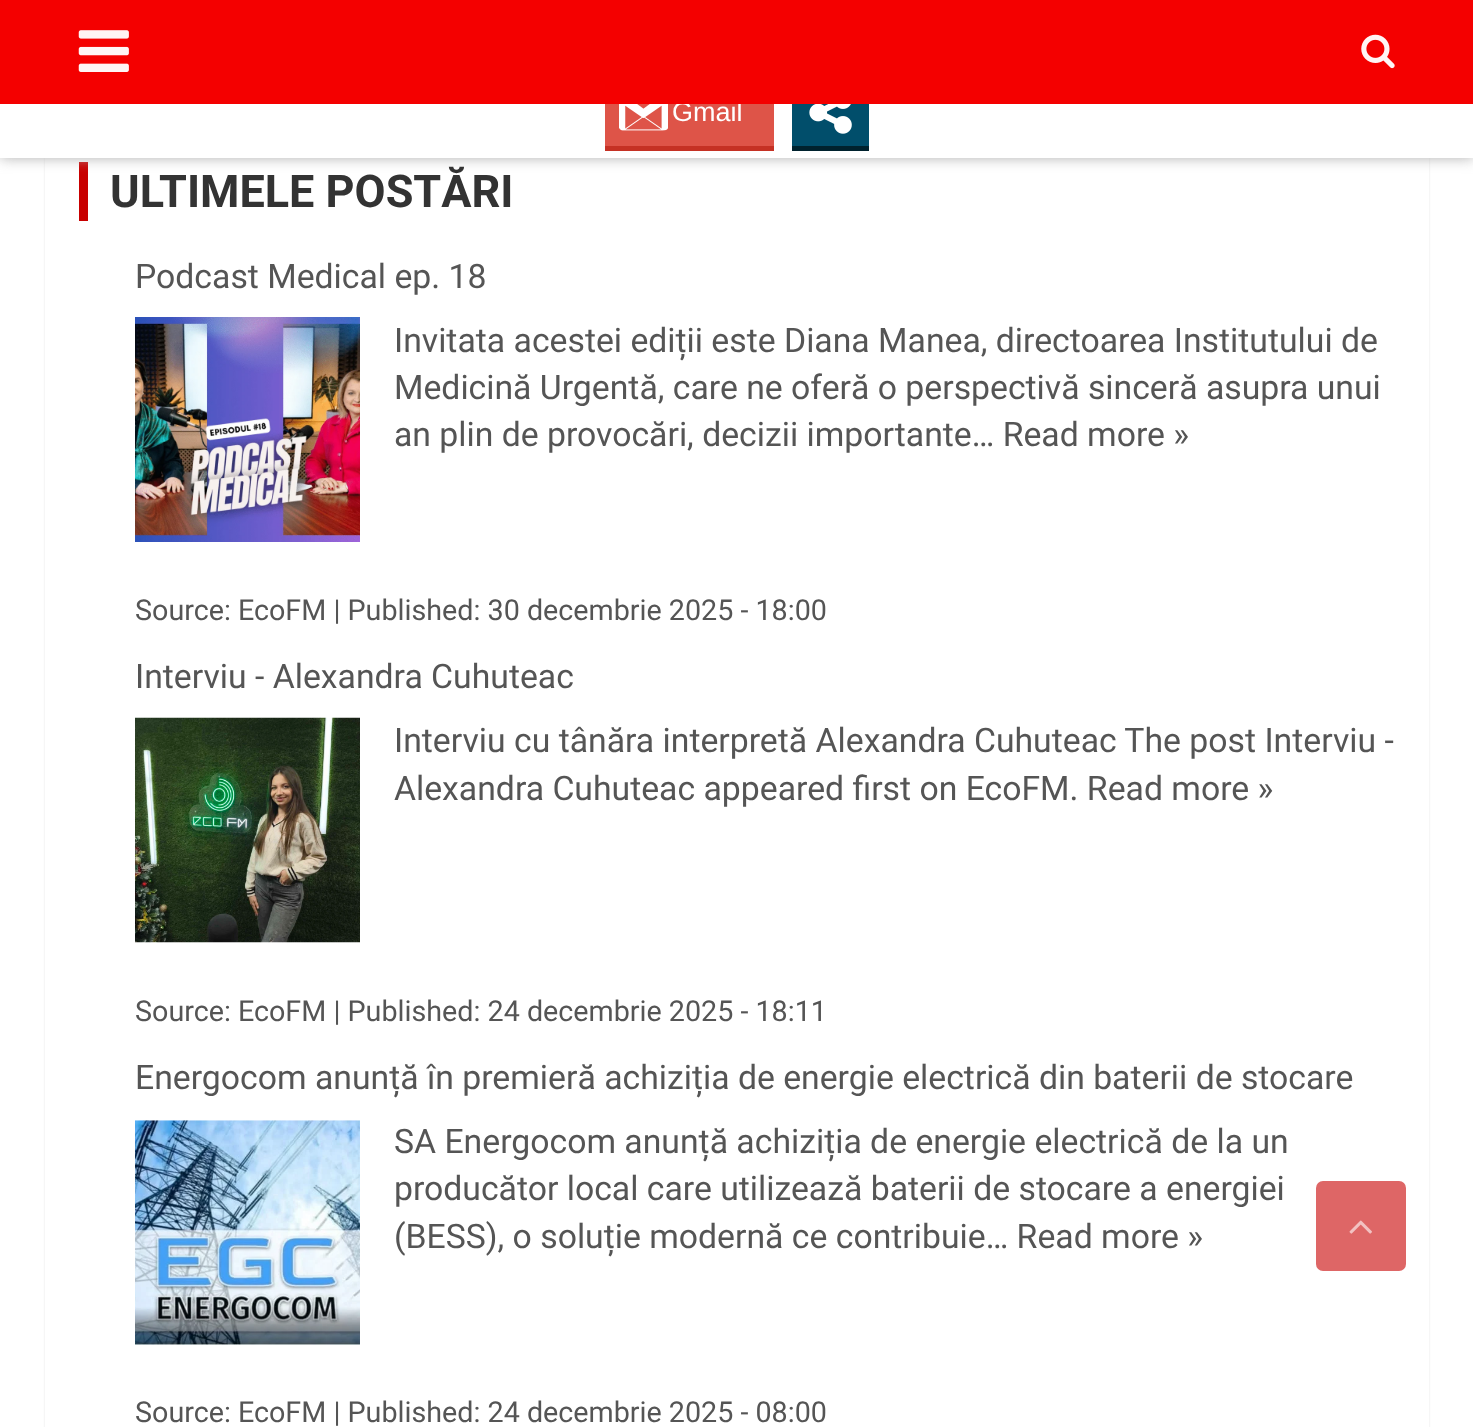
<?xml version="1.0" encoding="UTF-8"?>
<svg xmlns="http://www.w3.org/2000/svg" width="1473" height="1427">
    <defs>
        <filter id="blur1" x="-50%" y="-200%" width="200%" height="500%"><feGaussianBlur stdDeviation="1"/></filter>
        <filter id="blur2" x="-50%" y="-200%" width="200%" height="500%"><feGaussianBlur stdDeviation="7"/></filter>
    </defs>
    <rect width="100%" height="100%" fill="#FFFFFF"/>
    <rect x="45" y="131" width="1384" height="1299" fill="#000000" fill-opacity="0.1" filter="url(#blur1)"/>
    <rect x="45" y="158" width="1384" height="1269" fill="#FFFFFF"/>
    <rect x="79" y="162" width="9" height="59" fill="#C80000"/>
    <rect x="0" y="0" width="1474" height="158" fill="#B1B1B1" filter="url(#blur2)"/>
    <rect x="0" y="0" width="1473" height="158" fill="#FFFFFF"/>
    <path d="M 68 79 V 83 H 295 V 16 V 79 Z" fill="#2A3F6C"/>
    <rect x="68" y="11" width="227" height="68" fill="#3B5998"/>
    <image x="94" y="27" width="24" height="45" href="img_03.png"/>
    <path d="M 313 79 V 83 H 484 V 16 V 79 Z" fill="#0080B0"/>
    <rect x="313" y="11" width="171" height="68" fill="#00ACED"/>
    <image x="326" y="24" width="50" height="42" href="img_04.png"/>
    <rect x="502" y="79" width="103" height="4" fill="#394A7B"/>
    <rect x="502" y="11" width="148" height="68" fill="#4C63A5"/>
    <image x="519" y="22" width="43" height="46" href="img_05.png"/>
    <path d="M 668 16 V 83 H 898 V 16 V 79 H 668 Z" fill="#005F8F"/>
    <rect x="668" y="11" width="230" height="68" fill="#0088CC"/>
    <path d="M 730 21 L 731 22 L 725 58 C 724 65 725 68 720 65 L 709 61 C 699 73 699 73 699 58 L 723 29 L 694 55 L 687 52 C 686 51 680 50 682 47 L 729 21 Z" fill="#FFFFFF"/>
    <rect x="916" y="79" width="227" height="4" fill="#339F3E"/>
    <rect x="916" y="11" width="227" height="68" fill="#4BC557"/>
    <image x="931" y="21" width="47" height="48" href="img_06.png"/>
    <rect x="1161" y="79" width="227" height="4" fill="#704295"/>
    <rect x="1161" y="11" width="227" height="68" fill="#8F5DB7"/>
    <image x="1175" y="20" width="49" height="50" href="img_07.png"/>
    <rect x="605" y="79" width="169" height="67" fill="#DE5448"/>
    <image x="619" y="94" width="49" height="37" href="img_08.png"/>
    <text x="672" y="121" font-family="Liberation Sans" font-size="27" fill="#FFFFFF">Gmail</text>
    <path d="M 792 146 V 151 H 869 V 83 H 868 V 146 Z" fill="#00222E"/>
    <rect x="792" y="79" width="77" height="67" fill="#014E6B"/>
    <image x="809" y="91" width="43" height="43" href="img_09.png"/>
    <rect x="0" y="0" width="1473" height="104" fill="#F40000" fill-opacity="0.96"/>
    <rect x="0" y="0" width="1473" height="104" fill="#F40000" fill-opacity="0.96"/>
    <image x="78" y="30" width="51" height="42" href="img_01.png"/>
    <image x="1361" y="34" width="34" height="35" href="img_02.png"/>
    <path d="M 605 83 V 151 H 774 V 146 H 605 Z" fill="#C53124"/>
    <text x="110" y="207" font-family="Roboto" font-size="45" font-weight="700" fill="#333333">ULTIMELE POSTĂRI</text>
    <text x="135" y="288" font-family="Roboto" font-size="33.75" fill="#555555">Podcast Medical ep. 18</text>
    <image x="135" y="317" width="225" height="225" href="img_10.png"/>
    <text font-family="Roboto" font-size="33.75" fill="#555555">
        <tspan x="394" y="352">Invitata acestei ediții este Diana Manea, directoarea Institutului de</tspan>
        <tspan x="394" y="399">Medicină Urgentă, care ne oferă o perspectivă sinceră asupra unui</tspan>
        <tspan x="394" y="446">an plin de provocări, decizii importante… Read more »</tspan>
    </text>
    <text x="135" y="620" font-family="Roboto" font-size="28.7" fill="#555555">Source: EcoFM | Published: 30 decembrie 2025 - 18:00</text>
    <text x="135" y="688" font-family="Roboto" font-size="33.75" fill="#555555">Interviu - Alexandra Cuhuteac</text>
    <image x="135" y="717" width="225" height="226" href="img_11.png"/>
    <text font-family="Roboto" font-size="33.75" fill="#555555">
        <tspan x="394" y="752">Interviu cu tânăra interpretă Alexandra Cuhuteac The post Interviu -</tspan>
        <tspan x="394" y="800">Alexandra Cuhuteac appeared first on EcoFM. Read more »</tspan>
    </text>
    <text x="135" y="1021" font-family="Roboto" font-size="28.7" fill="#555555">Source: EcoFM | Published: 24 decembrie 2025 - 18:11</text>
    <text x="135" y="1089" font-family="Roboto" font-size="33.75" fill="#555555">Energocom anunță în premieră achiziția de energie electrică din baterii de stocare</text>
    <image x="135" y="1120" width="225" height="225" href="img_12.png"/>
    <text font-family="Roboto" font-size="33.75" fill="#555555">
        <tspan x="394" y="1153">SA Energocom anunță achiziția de energie electrică de la un</tspan>
        <tspan x="394" y="1200">producător local care utilizează baterii de stocare a energiei</tspan>
        <tspan x="394" y="1248">(BESS), o soluție modernă ce contribuie… Read more »</tspan>
    </text>
    <text x="135" y="1422" font-family="Roboto" font-size="28.7" fill="#555555">Source: EcoFM | Published: 24 decembrie 2025 - 08:00</text>
    <rect x="1316" y="1181" width="90" height="90" rx="7" fill="#DE6666"/>
    <image x="1349" y="1220" width="23" height="14" href="img_13.png"/>
</svg>
